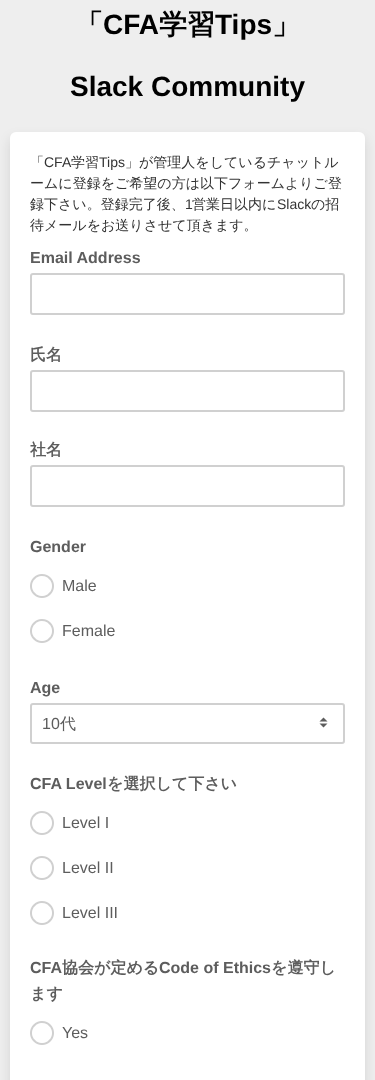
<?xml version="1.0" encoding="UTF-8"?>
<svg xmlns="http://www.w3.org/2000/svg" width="375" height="1080">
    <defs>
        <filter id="blur1" x="-50%" y="-200%" width="200%" height="500%"><feGaussianBlur stdDeviation="6"/></filter>
    </defs>
    <rect width="100%" height="100%" fill="#EEEEEE"/>
    <text x="75" y="34" font-family="WenQuanYi Zen Hei" font-size="28" font-weight="700" fill="#000000">「</text>
    <text x="103" y="34" font-family="Liberation Sans" font-size="28" font-weight="700" fill="#000000">CFA</text>
    <text x="159" y="34" font-family="WenQuanYi Zen Hei" font-size="28" font-weight="700" fill="#000000">学習</text>
    <text x="215" y="34" font-family="Liberation Sans" font-size="28" font-weight="700" fill="#000000">Tips</text>
    <text x="272" y="34" font-family="WenQuanYi Zen Hei" font-size="28" font-weight="700" fill="#000000">」</text>
    <text x="70" y="96" font-family="Liberation Sans" font-size="28" font-weight="700" fill="#000000">Slack Community</text>
    <rect x="10" y="138" width="355" height="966" rx="6" fill="#0D1216" fill-opacity="0.12" filter="url(#blur1)"/>
    <rect x="10" y="132" width="355" height="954" rx="6" fill="#FFFFFF"/>
    <text x="30" y="167" font-family="WenQuanYi Zen Hei" font-size="14" font-weight="500" fill="#333333">「</text>
    <text x="44" y="167" font-family="Liberation Sans" font-size="14" fill="#333333">CFA</text>
    <text x="71" y="167" font-family="WenQuanYi Zen Hei" font-size="14" font-weight="500" fill="#333333">学習</text>
    <text x="99" y="167" font-family="Liberation Sans" font-size="14" fill="#333333">Tips</text>
    <text x="125" y="167" font-family="WenQuanYi Zen Hei" font-size="14" font-weight="500" fill="#333333">」が管理人をしているチャットル</text>
    <text font-family="WenQuanYi Zen Hei" font-size="14" font-weight="500" fill="#333333">
        <tspan x="30" y="188">ームに登録をご希望の方は以下フォームよりご登</tspan>
        <tspan x="30" y="209">録下さい。登録完了後、</tspan>
    </text>
    <text x="185" y="209" font-family="Liberation Sans" font-size="14" fill="#333333">1</text>
    <text x="192" y="209" font-family="WenQuanYi Zen Hei" font-size="14" font-weight="500" fill="#333333">営業日以内に</text>
    <text x="277" y="209" font-family="Liberation Sans" font-size="14" fill="#333333">Slack</text>
    <text x="311" y="209" font-family="WenQuanYi Zen Hei" font-size="14" font-weight="500" fill="#333333">の招</text>
    <text x="30" y="230" font-family="WenQuanYi Zen Hei" font-size="14" font-weight="500" fill="#333333">待メールをお送りさせて頂きます。</text>
    <text x="30" y="263" font-family="Liberation Sans" font-size="16" font-weight="700" fill="#5D5D5D">Email Address</text>
    <rect x="31" y="274" width="313" height="40" rx="2" fill="none" stroke="#D0D0D0" stroke-width="2"/>
    <text x="30" y="360" font-family="WenQuanYi Zen Hei" font-size="16" font-weight="700" fill="#5D5D5D">氏名</text>
    <rect x="31" y="371" width="313" height="40" rx="2" fill="none" stroke="#D0D0D0" stroke-width="2"/>
    <text x="30" y="455" font-family="WenQuanYi Zen Hei" font-size="16" font-weight="700" fill="#5D5D5D">社名</text>
    <rect x="31" y="466" width="313" height="40" rx="2" fill="none" stroke="#D0D0D0" stroke-width="2"/>
    <text x="30" y="552" font-family="Liberation Sans" font-size="16" font-weight="700" fill="#5D5D5D">Gender</text>
    <image x="30" y="574" width="24" height="24" href="img_01.png"/>
    <text x="62" y="591" font-family="Liberation Sans" font-size="16" fill="#5D5D5D">Male</text>
    <image x="30" y="619" width="24" height="24" href="img_01.png"/>
    <text x="62" y="636" font-family="Liberation Sans" font-size="16" fill="#5D5D5D">Female</text>
    <text x="30" y="693" font-family="Liberation Sans" font-size="16" font-weight="700" fill="#5D5D5D">Age</text>
    <image x="319" y="717" width="9" height="11" href="img_02.png"/>
    <rect x="31" y="704" width="313" height="39" rx="2" fill="none" stroke="#D0D0D0" stroke-width="2"/>
    <text x="42" y="729" font-family="Liberation Sans" font-size="16" fill="#5D5D5D">10</text>
    <text x="60" y="729" font-family="WenQuanYi Zen Hei" font-size="16" font-weight="500" fill="#5D5D5D">代</text>
    <text x="30" y="789" font-family="Liberation Sans" font-size="16" font-weight="700" fill="#5D5D5D">CFA Level</text>
    <text x="107" y="789" font-family="WenQuanYi Zen Hei" font-size="16" font-weight="700" fill="#5D5D5D">を選択して下さい</text>
    <image x="30" y="811" width="24" height="24" href="img_01.png"/>
    <text x="62" y="828" font-family="Liberation Sans" font-size="16" fill="#5D5D5D">Level I</text>
    <image x="30" y="856" width="24" height="24" href="img_01.png"/>
    <text x="62" y="873" font-family="Liberation Sans" font-size="16" fill="#5D5D5D">Level II</text>
    <image x="30" y="901" width="24" height="24" href="img_01.png"/>
    <text x="62" y="918" font-family="Liberation Sans" font-size="16" fill="#5D5D5D">Level III</text>
    <text x="30" y="973" font-family="Liberation Sans" font-size="16" font-weight="700" fill="#5D5D5D">CFA</text>
    <text x="62" y="973" font-family="WenQuanYi Zen Hei" font-size="16" font-weight="700" fill="#5D5D5D">協会が定める</text>
    <text x="159" y="973" font-family="Liberation Sans" font-size="16" font-weight="700" fill="#5D5D5D">Code of Ethics</text>
    <text x="271" y="973" font-family="WenQuanYi Zen Hei" font-size="16" font-weight="700" fill="#5D5D5D">を遵守し</text>
    <text x="30" y="999" font-family="WenQuanYi Zen Hei" font-size="16" font-weight="700" fill="#5D5D5D">ます</text>
    <image x="30" y="1021" width="24" height="24" href="img_01.png"/>
    <text x="62" y="1038" font-family="Liberation Sans" font-size="16" fill="#5D5D5D">Yes</text>
</svg>
